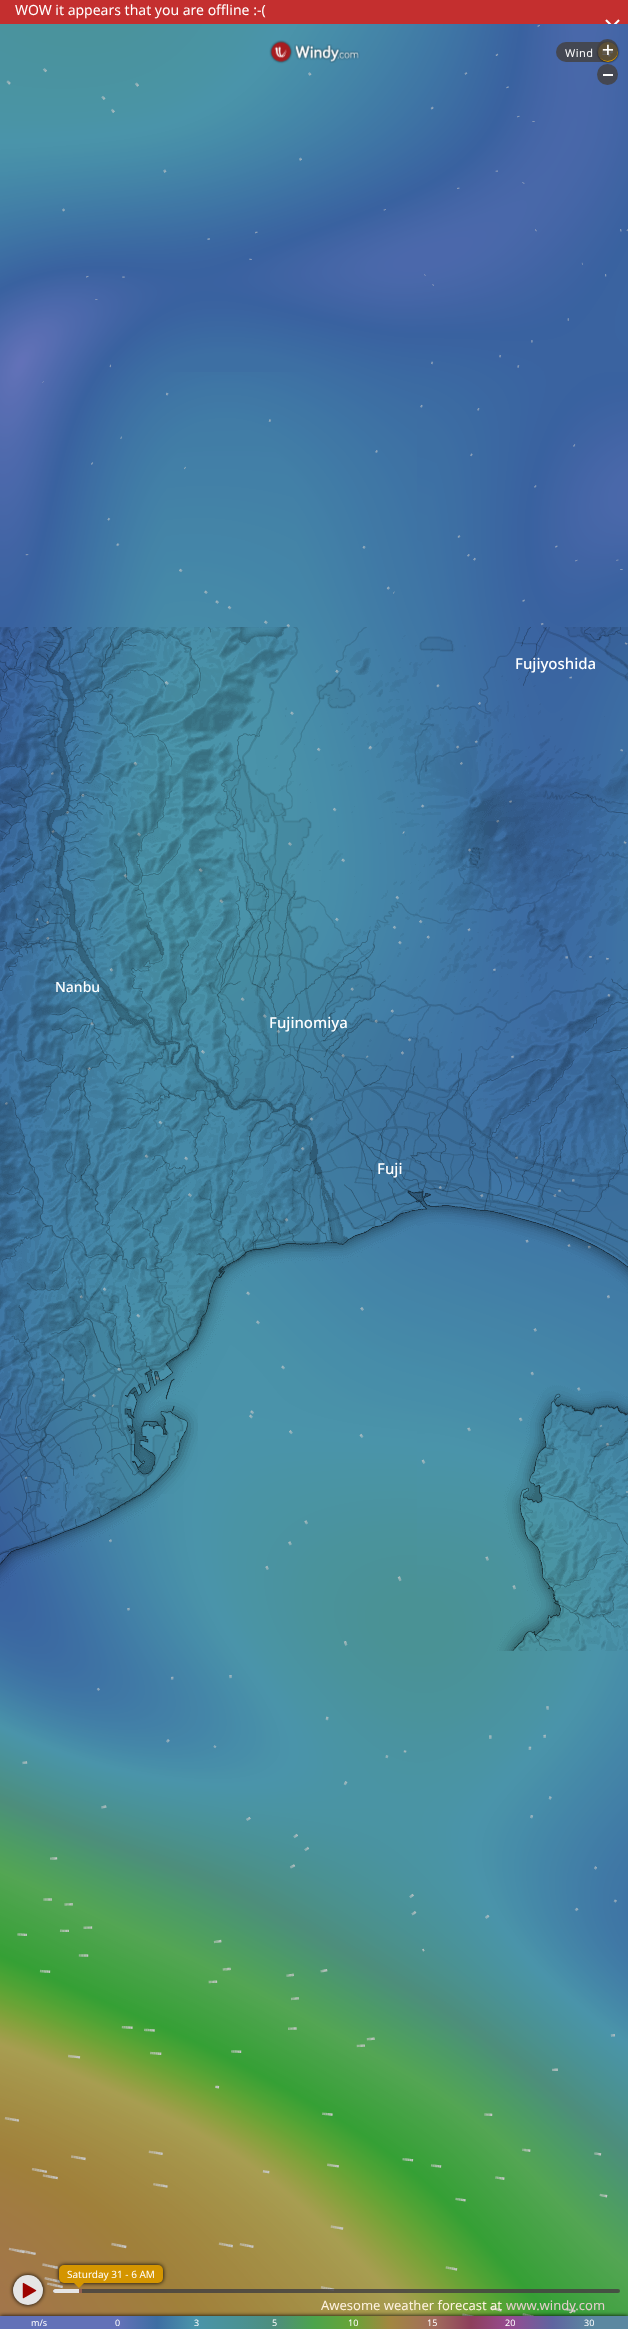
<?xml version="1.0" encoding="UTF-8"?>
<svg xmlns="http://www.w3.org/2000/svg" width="628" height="2329">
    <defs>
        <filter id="blur1" x="-50%" y="-200%" width="200%" height="500%"><feGaussianBlur stdDeviation="1"/></filter>
        <filter id="blur2" x="-50%" y="-200%" width="200%" height="500%"><feGaussianBlur stdDeviation="2"/></filter>
        <linearGradient id="g1" gradientUnits="userSpaceOnUse" x1="0" y1="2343" x2="628" y2="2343"><stop offset="0" stop-color="#6271B8"/><stop offset="0.19" stop-color="#6271B8"/><stop offset="0.25" stop-color="#3D6EA3"/><stop offset="0.31" stop-color="#4A94AA"/><stop offset="0.38" stop-color="#4A9294"/><stop offset="0.44" stop-color="#4D8E7C"/><stop offset="0.5" stop-color="#4CA44C"/><stop offset="0.56" stop-color="#67A436"/><stop offset="0.62" stop-color="#A28740"/><stop offset="0.69" stop-color="#A26D5C"/><stop offset="0.75" stop-color="#8D3F5C"/><stop offset="0.81" stop-color="#974B91"/><stop offset="0.88" stop-color="#5F64A0"/><stop offset="0.94" stop-color="#5B88A1"/><stop offset="1" stop-color="#5B88A1"/></linearGradient>
    </defs>
    <rect width="100%" height="100%" fill="#FFFFFF"/>
    <rect x="0" y="0" width="628" height="24" fill="#C42F2F"/>
    <text x="15" y="15" font-family="Noto Sans" font-size="14" fill="#FFFFFF">WOW it appears that you are offline :-(</text>
    <image x="605" y="19" width="15" height="5" href="img_01.png"/>
    <image x="161" y="24" width="256" height="91" href="img_07.png"/>
    <image x="0" y="24" width="161" height="91" href="img_06.png"/>
    <image x="417" y="24" width="211" height="91" href="img_08.png"/>
    <image x="0" y="115" width="161" height="256" href="img_09.png"/>
    <image x="161" y="115" width="256" height="256" href="img_10.png"/>
    <image x="417" y="115" width="211" height="256" href="img_11.png"/>
    <image x="0" y="371" width="161" height="256" href="img_12.png"/>
    <image x="161" y="371" width="256" height="256" href="img_13.png"/>
    <image x="417" y="371" width="211" height="256" href="img_14.png"/>
    <image x="0" y="627" width="161" height="256" href="img_15.png"/>
    <image x="161" y="627" width="256" height="256" href="img_16.png"/>
    <image x="417" y="627" width="211" height="256" href="img_17.png"/>
    <image x="0" y="883" width="161" height="256" href="img_18.png"/>
    <image x="161" y="883" width="256" height="256" href="img_19.png"/>
    <image x="417" y="883" width="211" height="256" href="img_20.png"/>
    <image x="0" y="1139" width="161" height="256" href="img_21.png"/>
    <image x="161" y="1139" width="256" height="256" href="img_22.png"/>
    <image x="417" y="1139" width="211" height="256" href="img_23.png"/>
    <image x="0" y="1395" width="161" height="256" href="img_24.png"/>
    <image x="161" y="1395" width="256" height="256" href="img_25.png"/>
    <image x="417" y="1395" width="211" height="256" href="img_26.png"/>
    <image x="0" y="1651" width="161" height="256" href="img_27.png"/>
    <image x="161" y="1651" width="256" height="256" href="img_28.png"/>
    <image x="417" y="1651" width="211" height="256" href="img_29.png"/>
    <image x="0" y="1907" width="161" height="256" href="img_30.png"/>
    <image x="161" y="1907" width="256" height="256" href="img_31.png"/>
    <image x="417" y="1907" width="211" height="256" href="img_32.png"/>
    <image x="0" y="2163" width="161" height="153" href="img_33.png"/>
    <image x="161" y="2163" width="256" height="153" href="img_34.png"/>
    <image x="417" y="2163" width="211" height="153" href="img_35.png"/>
    <image x="0" y="24" width="628" height="2292" href="img_36.png"/>
    <image x="269" y="40" width="24" height="24" href="img_02.png"/>
    <image x="294" y="44" width="66" height="19" href="img_03.png"/>
    <rect x="556" y="42" width="62" height="20" rx="10" fill="#444141" fill-opacity="0.84"/>
    <text x="565" y="57" font-family="Noto Sans" font-size="11" letter-spacing="0.5" fill="#FFFFFF">Wind</text>
    <rect x="598" y="42" width="20" height="20" rx="10" fill="#000000" filter="url(#blur1)"/>
    <circle cx="608" cy="52" r="10" fill="#D49500"/>
    <image x="602" y="50" width="11" height="7" href="img_04.png"/>
    <rect x="597" y="39" width="21" height="22" rx="10.5" fill="#444141" fill-opacity="0.84"/>
    <image x="602" y="44" width="12" height="11" href="img_05.png"/>
    <circle cx="607.5" cy="74.5" r="10.5" fill="#444141" fill-opacity="0.84"/>
    <rect x="603" y="74" width="10" height="2" fill="#FFFFFF"/>
    <image x="0" y="627" width="161" height="256" href="img_37.png"/>
    <image x="161" y="627" width="256" height="256" href="img_38.png"/>
    <image x="417" y="627" width="211" height="256" href="img_39.png"/>
    <image x="0" y="883" width="161" height="256" href="img_40.png"/>
    <image x="161" y="883" width="256" height="256" href="img_41.png"/>
    <image x="417" y="883" width="211" height="256" href="img_42.png"/>
    <image x="0" y="1139" width="161" height="256" href="img_43.png"/>
    <image x="161" y="1139" width="256" height="256" href="img_44.png"/>
    <image x="417" y="1139" width="211" height="256" href="img_45.png"/>
    <image x="0" y="1395" width="161" height="193" href="img_46.png"/>
    <image x="161" y="1395" width="37" height="99" href="img_47.png"/>
    <image x="497" y="1395" width="131" height="256" href="img_48.png"/>
    <text x="515" y="669" font-family="Noto Sans" font-size="15" font-weight="500" fill="#FFFFFF">Fujiyoshida</text>
    <text x="55" y="992" font-family="Noto Sans" font-size="14" font-weight="500" fill="#FFFFFF">Nanbu</text>
    <text x="269" y="1028" font-family="Noto Sans" font-size="15" font-weight="500" fill="#FFFFFF">Fujinomiya</text>
    <text x="377" y="1174" font-family="Noto Sans" font-size="15" font-weight="500" fill="#FFFFFF">Fuji</text>
    <rect x="13" y="2275" width="30" height="30" rx="15" fill="#000000" filter="url(#blur2)"/>
    <circle cx="28" cy="2290" r="15" fill="#E5E5E5"/>
    <image x="22" y="2282" width="15" height="17" href="img_49.png"/>
    <rect x="59" y="2265" width="104" height="18" rx="5" fill="#000000" filter="url(#blur2)"/>
    <rect x="59" y="2265" width="104" height="18" rx="5" fill="#D49500"/>
    <text x="67" y="2278" font-family="Noto Sans" font-size="10" fill="#FFFFFF">Saturday 31 - 6 AM</text>
    <path d="M 74 2283 H 84 L 79 2288 Z" fill="#D49500"/>
    <rect x="53" y="2289" width="567" height="4" rx="2" fill="#444141" fill-opacity="0.84"/>
    <path d="M 55 2289 H 79 V 2293 H 55 C 54 2293 53 2292 53 2291 C 53 2290 54 2289 55 2289 Z" fill="#E5E5E5"/>
    <rect x="79" y="2289" width="3" height="4" fill="#946051"/>
    <rect x="0" y="2316" width="628" height="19" fill="#000000" filter="url(#blur2)"/>
    <text x="321" y="2310" font-family="Noto Sans" font-size="13" fill="#FFF3E1">Awesome weather forecast at</text>
    <text x="506" y="2310" font-family="Noto Sans" font-size="13" fill="#E6CECE">www.windy.com</text>
    <rect x="0" y="2316" width="628" height="13" fill="url(#g1)"/>
    <text x="31" y="2326" font-family="Noto Sans" font-size="9" fill="#FFFFFF">m/s</text>
    <text x="115" y="2326" font-family="Noto Sans" font-size="9" fill="#FFFFFF">0</text>
    <text x="194" y="2326" font-family="Noto Sans" font-size="9" fill="#FFFFFF">3</text>
    <text x="272" y="2326" font-family="Noto Sans" font-size="9" fill="#FFFFFF">5</text>
    <text x="348" y="2326" font-family="Noto Sans" font-size="9" fill="#FFFFFF">10</text>
    <text x="427" y="2326" font-family="Noto Sans" font-size="9" fill="#FFFFFF">15</text>
    <text x="505" y="2326" font-family="Noto Sans" font-size="9" fill="#FFFFFF">20</text>
    <text x="584" y="2326" font-family="Noto Sans" font-size="9" fill="#FFFFFF">30</text>
</svg>
